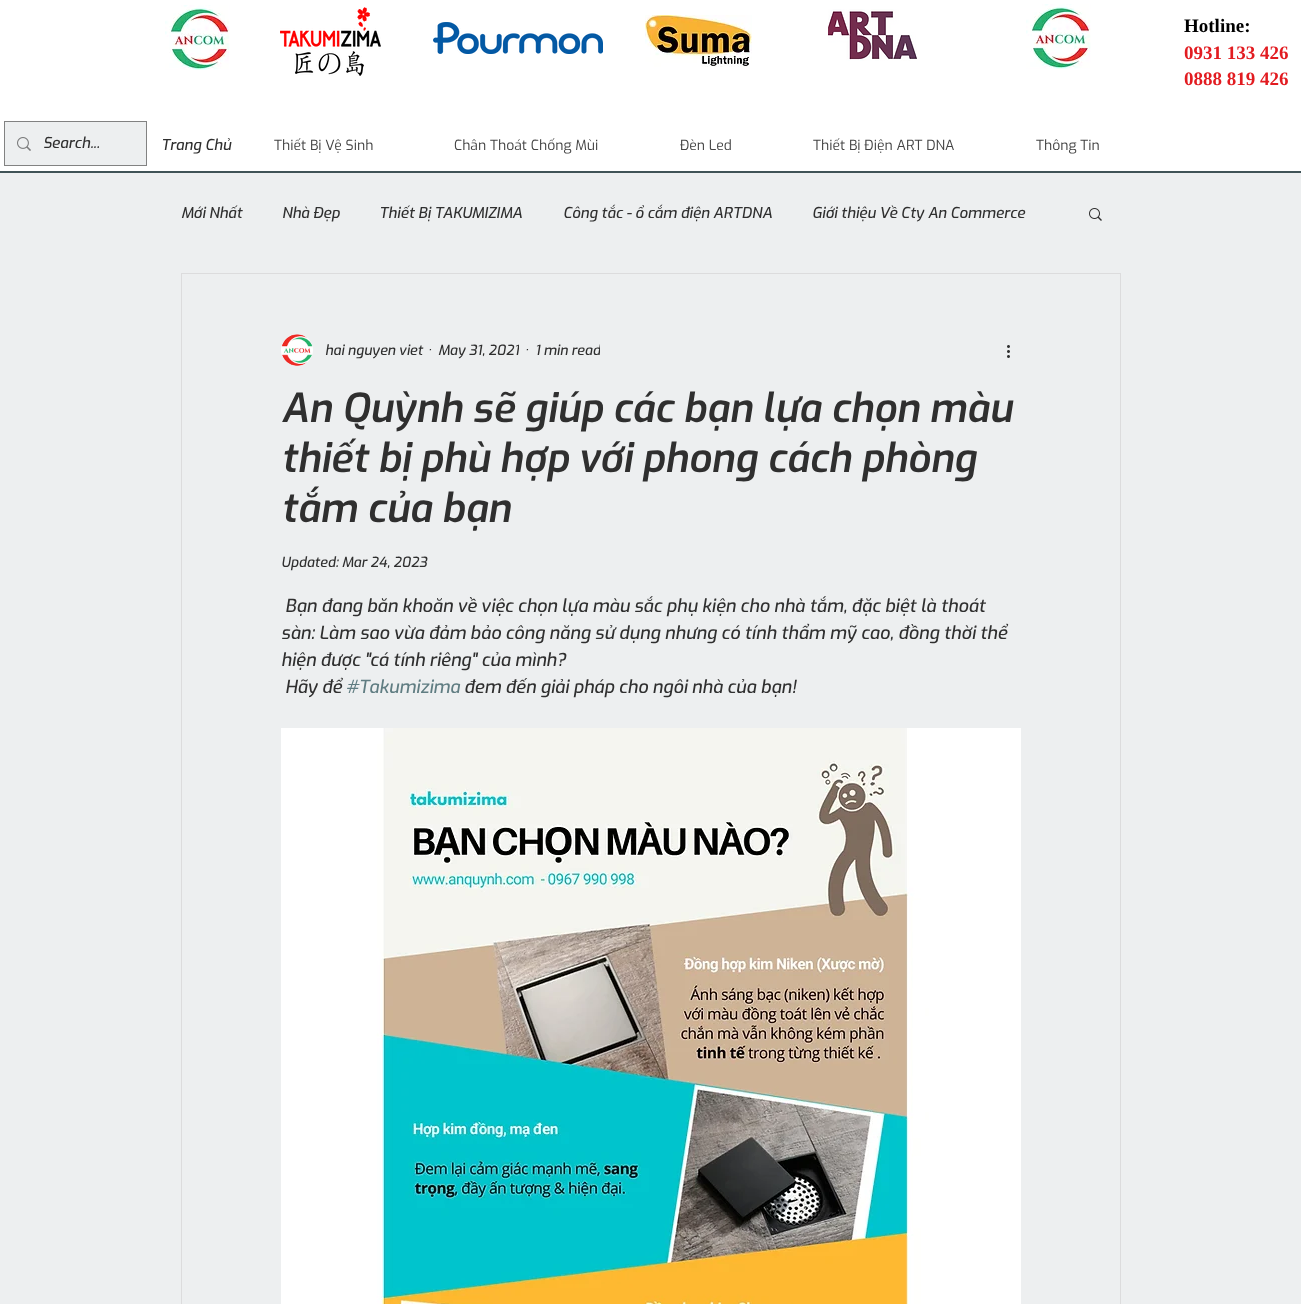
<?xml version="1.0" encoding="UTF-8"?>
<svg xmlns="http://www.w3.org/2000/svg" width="1301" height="1304">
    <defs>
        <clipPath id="clip1"><rect x="422" y="340" width="97" height="21"/></clipPath>
        <clipPath id="clip2"><rect x="519" y="340" width="81" height="21"/></clipPath>
    </defs>
    <rect width="100%" height="100%" fill="#EDEFF0"/>
    <rect x="0" y="0" width="1301" height="171" fill="#FFFFFF"/>
    <rect x="0" y="171" width="1301" height="2" fill="#405357"/>
    <image x="165" y="5" width="65" height="65" href="img_01.png"/>
    <image x="280" y="7" width="101" height="69" href="img_02.png"/>
    <image x="433" y="22" width="170" height="32" href="img_03.png"/>
    <image x="645" y="15" width="107" height="52" href="img_04.png"/>
    <image x="828" y="9" width="89" height="52" href="img_05.png"/>
    <image x="1026" y="4" width="65" height="65" href="img_01.png"/>
    <text x="1184" y="32" font-family="Liberation Serif" font-size="19" font-weight="700" fill="#000000">Hotline:</text>
    <text font-family="Liberation Serif" font-size="19" font-weight="700" fill="#E21C21">
        <tspan x="1184" y="59">0931 133 426</tspan>
        <tspan x="1184" y="85">0888 819 426</tspan>
    </text>
    <rect x="4.5" y="121.5" width="142" height="44" fill="none" stroke="#828282"/>
    <rect x="5" y="122" width="141" height="43" fill="#EDEFF0"/>
    <image x="17" y="137" width="14" height="14" href="img_06.png"/>
    <text x="43" y="148" font-family="Exo" font-size="15" font-weight="500" font-style="italic" fill="#2F2F2F">Search...</text>
    <text x="161" y="150" font-family="Exo" font-size="15" font-weight="500" font-style="italic" fill="#2F2F2F">Trang Chủ</text>
    <text x="274" y="150" font-family="Exo" font-size="14" fill="#444444">Thiết Bị Vệ Sinh</text>
    <text x="454" y="150" font-family="Exo" font-size="14" fill="#444444">Chân Thoát Chống Mùi</text>
    <text x="680" y="150" font-family="Exo" font-size="14" fill="#444444">Đèn Led</text>
    <text x="813" y="150" font-family="Exo" font-size="14" fill="#444444">Thiết Bị Điện ART DNA</text>
    <text x="1036" y="150" font-family="Exo" font-size="14" fill="#444444">Thông Tin</text>
    <text x="181" y="218" font-family="Exo" font-size="15" font-weight="500" font-style="italic" fill="#2F2F2F">Mới Nhất</text>
    <text x="282" y="218" font-family="Exo" font-size="15" font-weight="500" font-style="italic" fill="#2F2F2F">Nhà Đẹp</text>
    <text x="379" y="218" font-family="Exo" font-size="15" font-weight="500" font-style="italic" fill="#2F2F2F">Thiết Bị TAKUMIZIMA</text>
    <text x="563" y="218" font-family="Exo" font-size="15" font-weight="500" font-style="italic" fill="#2F2F2F">Công tắc - ổ cắm điện ARTDNA</text>
    <text x="812" y="218" font-family="Exo" font-size="15" font-weight="500" font-style="italic" fill="#2F2F2F">Giới thiệu Về Cty An Commerce</text>
    <image x="1089" y="208" width="13" height="13" href="img_07.png"/>
    <rect x="181.5" y="273.5" width="939" height="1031" fill="none" stroke="#DCDCDD"/>
    <image x="281" y="334" width="32" height="32" href="img_08.png"/>
    <text x="325" y="355" font-family="Exo" font-size="14" font-weight="500" font-style="italic" fill="#2F2F2F">hai nguyen viet</text>
    <text x="428" y="355" font-family="Exo" font-size="14" font-weight="500" font-style="italic" fill="#2F2F2F">·</text>
    <g clip-path="url(#clip1)">
        <text x="438" y="355" font-family="Exo" font-size="14" font-weight="500" font-style="italic" fill="#2F2F2F">May 31, 2021</text>
    </g>
    <text x="525" y="355" font-family="Exo" font-size="14" font-weight="500" font-style="italic" fill="#2F2F2F">·</text>
    <g clip-path="url(#clip2)">
        <text x="535" y="355" font-family="Exo" font-size="14" font-weight="500" font-style="italic" fill="#2F2F2F">1 min read</text>
    </g>
    <image x="1007" y="345" width="3" height="13" href="img_09.png"/>
    <text font-family="Exo" font-size="40" font-weight="600" font-style="italic" fill="#2F2F2F">
        <tspan x="281" y="422">An Quỳnh sẽ giúp các bạn lựa chọn màu</tspan>
        <tspan x="281" y="472">thiết bị phù hợp với phong cách phòng</tspan>
        <tspan x="281" y="522">tắm của bạn</tspan>
    </text>
    <text x="281" y="567" font-family="Exo" font-size="14" font-weight="500" font-style="italic" fill="#2F2F2F">Updated: Mar 24, 2023</text>
    <text x="285" y="612" font-family="Exo" font-size="18" font-weight="500" font-style="italic" fill="#2F2F2F">Bạn đang băn khoăn về việc chọn lựa màu sắc phụ kiện cho nhà tắm, đặc biệt là thoát</text>
    <text font-family="Exo" font-size="18" font-weight="500" font-style="italic" fill="#2F2F2F">
        <tspan x="281" y="639">sàn: Làm sao vừa đảm bảo công năng sử dụng nhưng có tính thẩm mỹ cao, đồng thời thể</tspan>
        <tspan x="281" y="666">hiện được "cá tính riêng" của mình?</tspan>
    </text>
    <text x="285" y="693" font-family="Exo" font-size="18" font-weight="500" font-style="italic" fill="#2F2F2F">Hãy để</text>
    <text x="346" y="693" font-family="Exo" font-size="18" font-weight="500" font-style="italic" fill="#607D82">#Takumizima</text>
    <text x="464" y="693" font-family="Exo" font-size="18" font-weight="500" font-style="italic" fill="#2F2F2F">đem đến giải pháp cho ngôi nhà của bạn!</text>
    <image x="281" y="728" width="740" height="576" href="img_10.png"/>
</svg>
